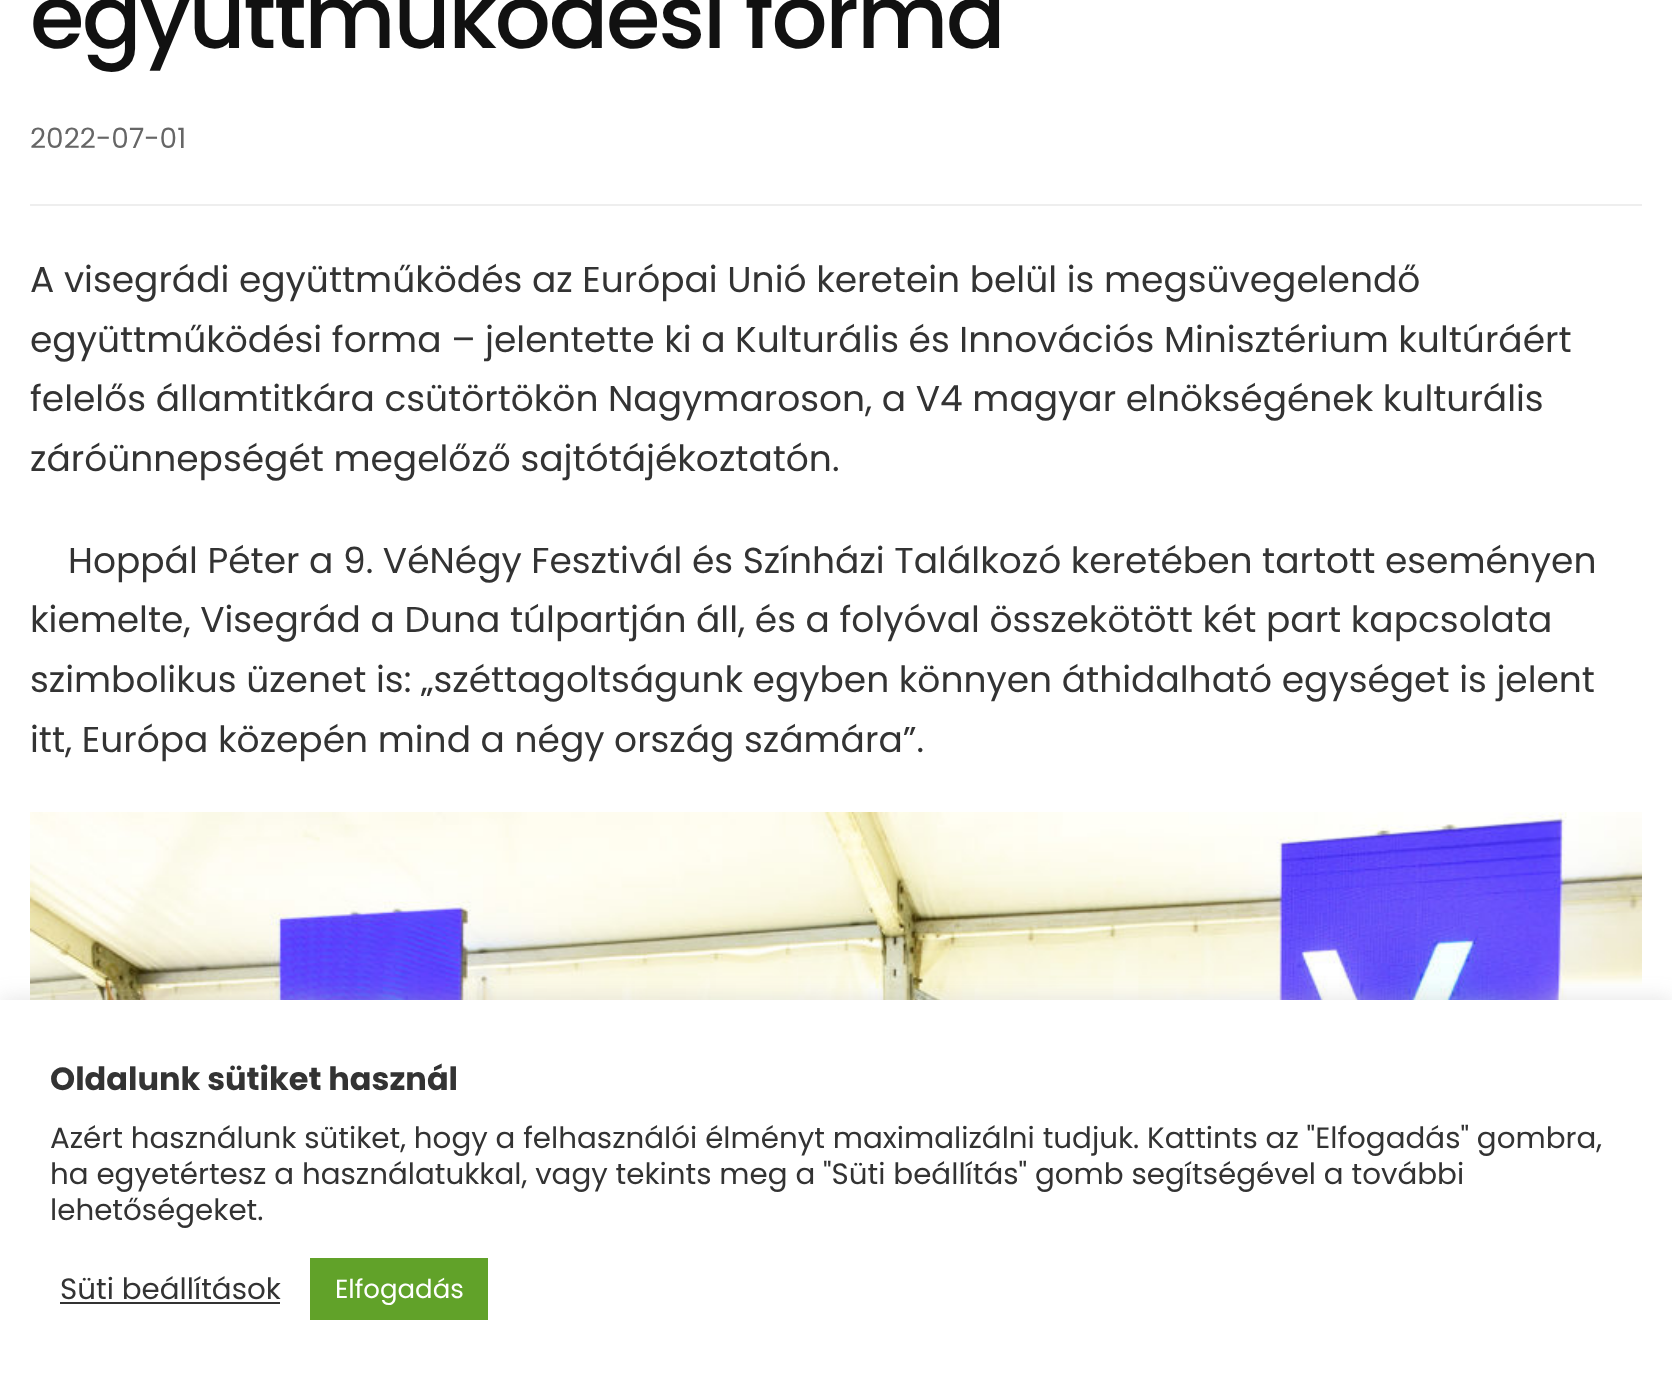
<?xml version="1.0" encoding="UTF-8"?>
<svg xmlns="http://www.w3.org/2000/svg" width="1672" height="1379">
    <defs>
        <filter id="blur1" x="-50%" y="-200%" width="200%" height="500%"><feGaussianBlur stdDeviation="10"/></filter>
    </defs>
    <rect width="100%" height="100%" fill="#FFFFFF"/>
    <rect x="30" y="204" width="1612" height="2" fill="#EEEEEE"/>
    <text x="30" y="48" font-family="Poppins" font-size="88" font-weight="500" letter-spacing="-2.25" fill="#111111">együttműködési forma</text>
    <text x="30" y="148" font-family="Poppins" font-size="28" fill="#666666">2022-07-01</text>
    <text font-family="Poppins" font-size="36" fill="#333333">
        <tspan x="30" y="292">A visegrádi együttműködés az Európai Unió keretein belül is megsüvegelendő</tspan>
        <tspan x="30" y="352">együttműködési forma – jelentette ki a Kulturális és Innovációs Minisztérium kultúráért</tspan>
        <tspan x="30" y="411">felelős államtitkára csütörtökön Nagymaroson, a V4 magyar elnökségének kulturális</tspan>
        <tspan x="30" y="471">záróünnepségét megelőző sajtótájékoztatón.</tspan>
    </text>
    <text x="68" y="573" font-family="Poppins" font-size="36" fill="#333333">Hoppál Péter a 9. VéNégy Fesztivál és Színházi Találkozó keretében tartott eseményen</text>
    <text font-family="Poppins" font-size="36" fill="#333333">
        <tspan x="30" y="632">kiemelte, Visegrád a Duna túlpartján áll, és a folyóval összekötött két part kapcsolata</tspan>
        <tspan x="30" y="692">szimbolikus üzenet is: „széttagoltságunk egyben könnyen áthidalható egységet is jelent</tspan>
        <tspan x="30" y="752">itt, Európa közepén mind a négy ország számára”.</tspan>
    </text>
    <image x="30" y="812" width="1612" height="188" href="img_01.png"/>
    <rect x="0" y="998" width="1672" height="380" fill="#ACABAB" fill-opacity="0.3" filter="url(#blur1)"/>
    <rect x="0" y="1000" width="1672" height="379" fill="#FFFFFF"/>
    <text x="50" y="1090" font-family="Poppins" font-size="32" font-weight="700" fill="#333333">Oldalunk sütiket használ</text>
    <text font-family="Poppins" font-size="29.33" fill="#333333">
        <tspan x="50" y="1148">Azért használunk sütiket, hogy a felhasználói élményt maximalizálni tudjuk. Kattints az "Elfogadás" gombra,</tspan>
        <tspan x="50" y="1184">ha egyetértesz a használatukkal, vagy tekints meg a "Süti beállítás" gomb segítségével a további</tspan>
        <tspan x="50" y="1220">lehetőségeket.</tspan>
    </text>
    <text x="60" y="1299" font-family="Poppins" font-size="29.33" fill="#333333">Süti beállítások</text>
    <rect x="60" y="1302" width="220" height="2" fill="#333333"/>
    <rect x="310" y="1258" width="178" height="62" fill="#61A229"/>
    <text x="335" y="1298" font-family="Poppins" font-size="26" fill="#FFFFFF">Elfogadás</text>
</svg>
